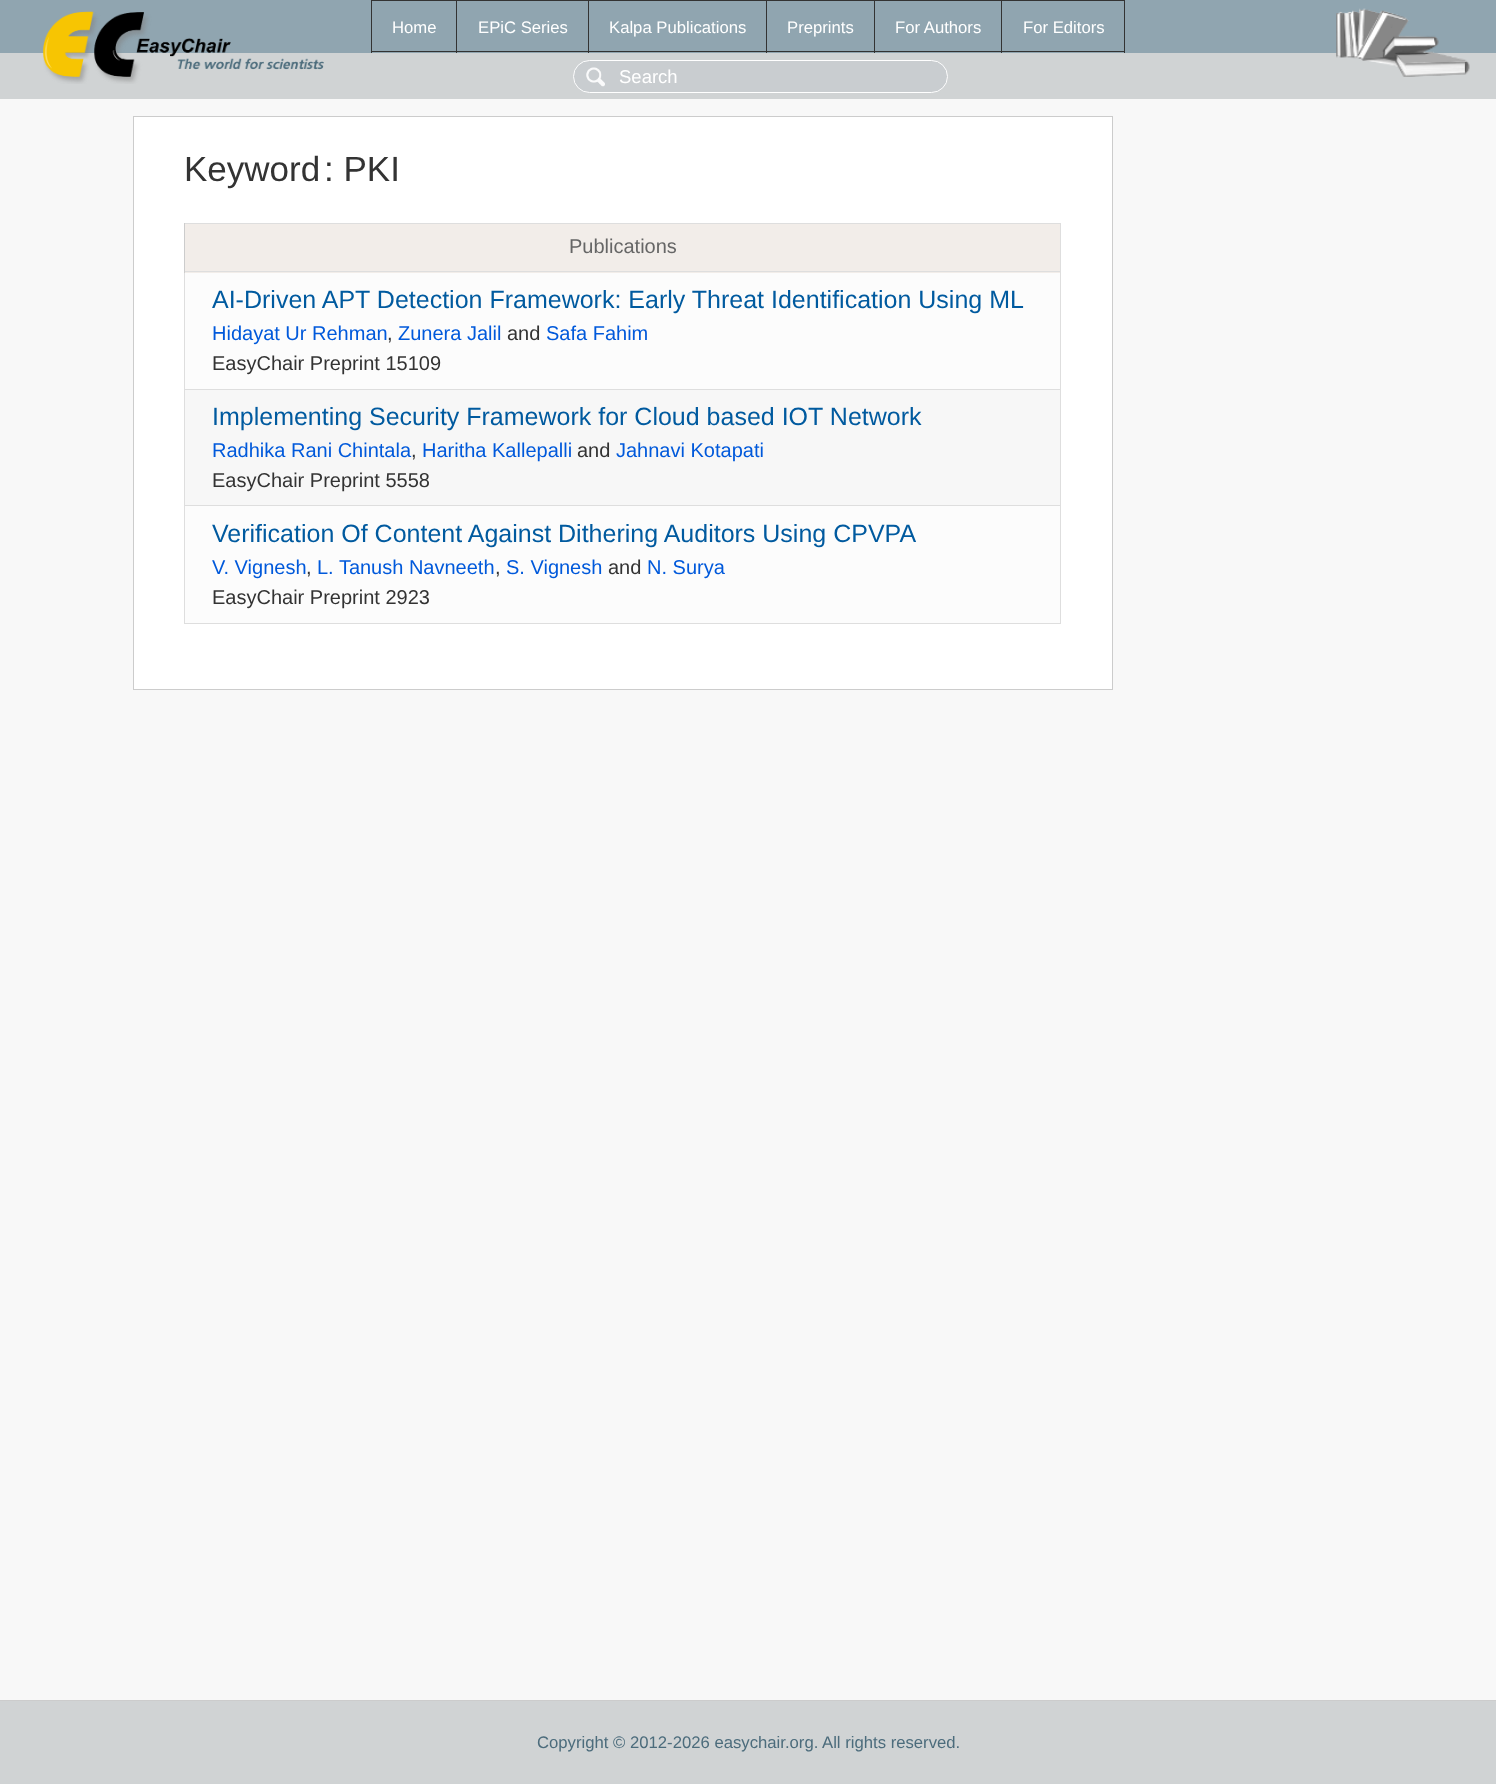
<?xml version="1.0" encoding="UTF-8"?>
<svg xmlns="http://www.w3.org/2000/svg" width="1496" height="1784">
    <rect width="100%" height="100%" fill="#90A5B0"/>
    <rect x="0" y="54" width="1495" height="44" fill="#D0D3D4"/>
    <rect x="0" y="53" width="1496" height="1" fill="#D0D3D4"/>
    <image x="43" y="11" width="281" height="73" href="img_01.png"/>
    <rect x="1001" y="0" width="124" height="1" fill="#333333"/>
    <rect x="1124" y="0" width="1" height="53" fill="#333333"/>
    <rect x="1001" y="51" width="124" height="1" fill="#333333"/>
    <rect x="1001" y="0" width="1" height="53" fill="#333333"/>
    <rect x="874" y="0" width="129" height="1" fill="#333333"/>
    <rect x="874" y="51" width="129" height="1" fill="#333333"/>
    <rect x="874" y="0" width="1" height="53" fill="#333333"/>
    <rect x="766" y="0" width="109" height="1" fill="#333333"/>
    <rect x="766" y="51" width="109" height="1" fill="#333333"/>
    <rect x="766" y="0" width="1" height="53" fill="#333333"/>
    <rect x="588" y="0" width="180" height="1" fill="#333333"/>
    <rect x="588" y="51" width="180" height="1" fill="#333333"/>
    <rect x="588" y="0" width="1" height="53" fill="#333333"/>
    <rect x="456" y="0" width="133" height="1" fill="#333333"/>
    <rect x="456" y="51" width="133" height="1" fill="#333333"/>
    <rect x="456" y="0" width="1" height="53" fill="#333333"/>
    <rect x="371" y="0" width="87" height="1" fill="#333333"/>
    <rect x="371" y="51" width="87" height="1" fill="#333333"/>
    <rect x="371" y="0" width="1" height="53" fill="#333333"/>
    <text x="392" y="33" font-family="Liberation Sans" font-size="16.7" fill="#FFFFFF">Home</text>
    <text x="478" y="33" font-family="Liberation Sans" font-size="16.7" fill="#FFFFFF">EPiC Series</text>
    <text x="609" y="33" font-family="Liberation Sans" font-size="16.7" fill="#FFFFFF">Kalpa Publications</text>
    <text x="787" y="33" font-family="Liberation Sans" font-size="16.7" fill="#FFFFFF">Preprints</text>
    <text x="895" y="33" font-family="Liberation Sans" font-size="16.7" fill="#FFFFFF">For Authors</text>
    <text x="1023" y="33" font-family="Liberation Sans" font-size="16.7" fill="#FFFFFF">For Editors</text>
    <image x="1336" y="8" width="134" height="69" href="img_02.png"/>
    <rect x="1495" y="53" width="1" height="46" fill="#D0D3D4"/>
    <rect x="0" y="98" width="1496" height="1" fill="#D0D3D4"/>
    <rect x="573" y="60" width="375" height="33" rx="16.5" fill="#C9CDD0"/>
    <image x="586" y="67" width="19" height="20" href="img_03.png"/>
    <rect x="573.5" y="60.5" width="374" height="32" rx="16" fill="none" stroke="#FFFFFF"/>
    <text x="619" y="83" font-family="Liberation Sans" font-size="18.5" fill="#FFFFFF">Search</text>
    <rect x="0" y="99" width="1496" height="1601" fill="#F8F8F8"/>
    <rect x="133.5" y="116.5" width="979" height="573" fill="#FFFFFF" stroke="#CCCCCC"/>
    <text x="184" y="181" font-family="Liberation Sans" font-size="35" fill="#333333">Keyword</text>
    <text x="324" y="181" font-family="Liberation Sans" font-size="35" fill="#333333">: PKI</text>
    <rect x="184" y="223" width="877" height="1" fill="#DEDEDE"/>
    <rect x="1060" y="223" width="1" height="401" fill="#DEDEDE"/>
    <rect x="184" y="623" width="877" height="1" fill="#DEDEDE"/>
    <rect x="184" y="273" width="1" height="351" fill="#DEDEDE"/>
    <rect x="185" y="224" width="875" height="49" fill="#F2EDE9"/>
    <rect x="184" y="271" width="877" height="1" fill="#DEDEDE"/>
    <rect x="184" y="223" width="1" height="50" fill="#CCCCCC"/>
    <text x="569" y="253" font-family="Liberation Sans" font-size="20" fill="#666666">Publications</text>
    <rect x="185" y="273" width="875" height="116" fill="#FCFCFC"/>
    <rect x="184" y="389" width="877" height="1" fill="#DEDEDE"/>
    <text x="212" y="308" font-family="Liberation Sans" font-size="25" fill="#005A9F">AI-Driven APT Detection Framework: Early Threat Identification Using ML</text>
    <text x="212" y="340" font-family="Liberation Sans" font-size="20" fill="#0059DB">Hidayat Ur Rehman</text>
    <text x="387" y="340" font-family="Liberation Sans" font-size="20" fill="#333333">,</text>
    <text x="398" y="340" font-family="Liberation Sans" font-size="20" fill="#0059DB">Zunera Jalil</text>
    <text x="507" y="340" font-family="Liberation Sans" font-size="20" fill="#333333">and</text>
    <text x="546" y="340" font-family="Liberation Sans" font-size="20" fill="#0059DB">Safa Fahim</text>
    <text x="212" y="370" font-family="Liberation Sans" font-size="20" fill="#333333">EasyChair Preprint 15109</text>
    <rect x="185" y="390" width="875" height="115" fill="#F7F7F7"/>
    <rect x="184" y="505" width="877" height="1" fill="#DEDEDE"/>
    <text x="212" y="425" font-family="Liberation Sans" font-size="25" fill="#005A9F">Implementing Security Framework for Cloud based IOT Network</text>
    <text x="212" y="457" font-family="Liberation Sans" font-size="20" fill="#0059DB">Radhika Rani Chintala</text>
    <text x="411" y="457" font-family="Liberation Sans" font-size="20" fill="#333333">,</text>
    <text x="422" y="457" font-family="Liberation Sans" font-size="20" fill="#0059DB">Haritha Kallepalli</text>
    <text x="577" y="457" font-family="Liberation Sans" font-size="20" fill="#333333">and</text>
    <text x="616" y="457" font-family="Liberation Sans" font-size="20" fill="#0059DB">Jahnavi Kotapati</text>
    <text x="212" y="487" font-family="Liberation Sans" font-size="20" fill="#333333">EasyChair Preprint 5558</text>
    <rect x="185" y="506" width="875" height="117" fill="#FCFCFC"/>
    <text x="212" y="542" font-family="Liberation Sans" font-size="25" fill="#005A9F">Verification Of Content Against Dithering Auditors Using CPVPA</text>
    <text x="212" y="574" font-family="Liberation Sans" font-size="20" fill="#0059DB">V. Vignesh</text>
    <text x="306" y="574" font-family="Liberation Sans" font-size="20" fill="#333333">,</text>
    <text x="317" y="574" font-family="Liberation Sans" font-size="20" fill="#0059DB">L. Tanush Navneeth</text>
    <text x="495" y="574" font-family="Liberation Sans" font-size="20" fill="#333333">,</text>
    <text x="506" y="574" font-family="Liberation Sans" font-size="20" fill="#0059DB">S. Vignesh</text>
    <text x="608" y="574" font-family="Liberation Sans" font-size="20" fill="#333333">and</text>
    <text x="647" y="574" font-family="Liberation Sans" font-size="20" fill="#0059DB">N. Surya</text>
    <text x="212" y="604" font-family="Liberation Sans" font-size="20" fill="#333333">EasyChair Preprint 2923</text>
    <rect x="0" y="1701" width="1496" height="83" fill="#D0D3D4"/>
    <rect x="0" y="1700" width="1496" height="1" fill="#CCCCCC"/>
    <text x="537" y="1748" font-family="Liberation Sans" font-size="16.7" fill="#4C6C7C">Copyright © 2012-2026 easychair.org. All rights reserved.</text>
</svg>
